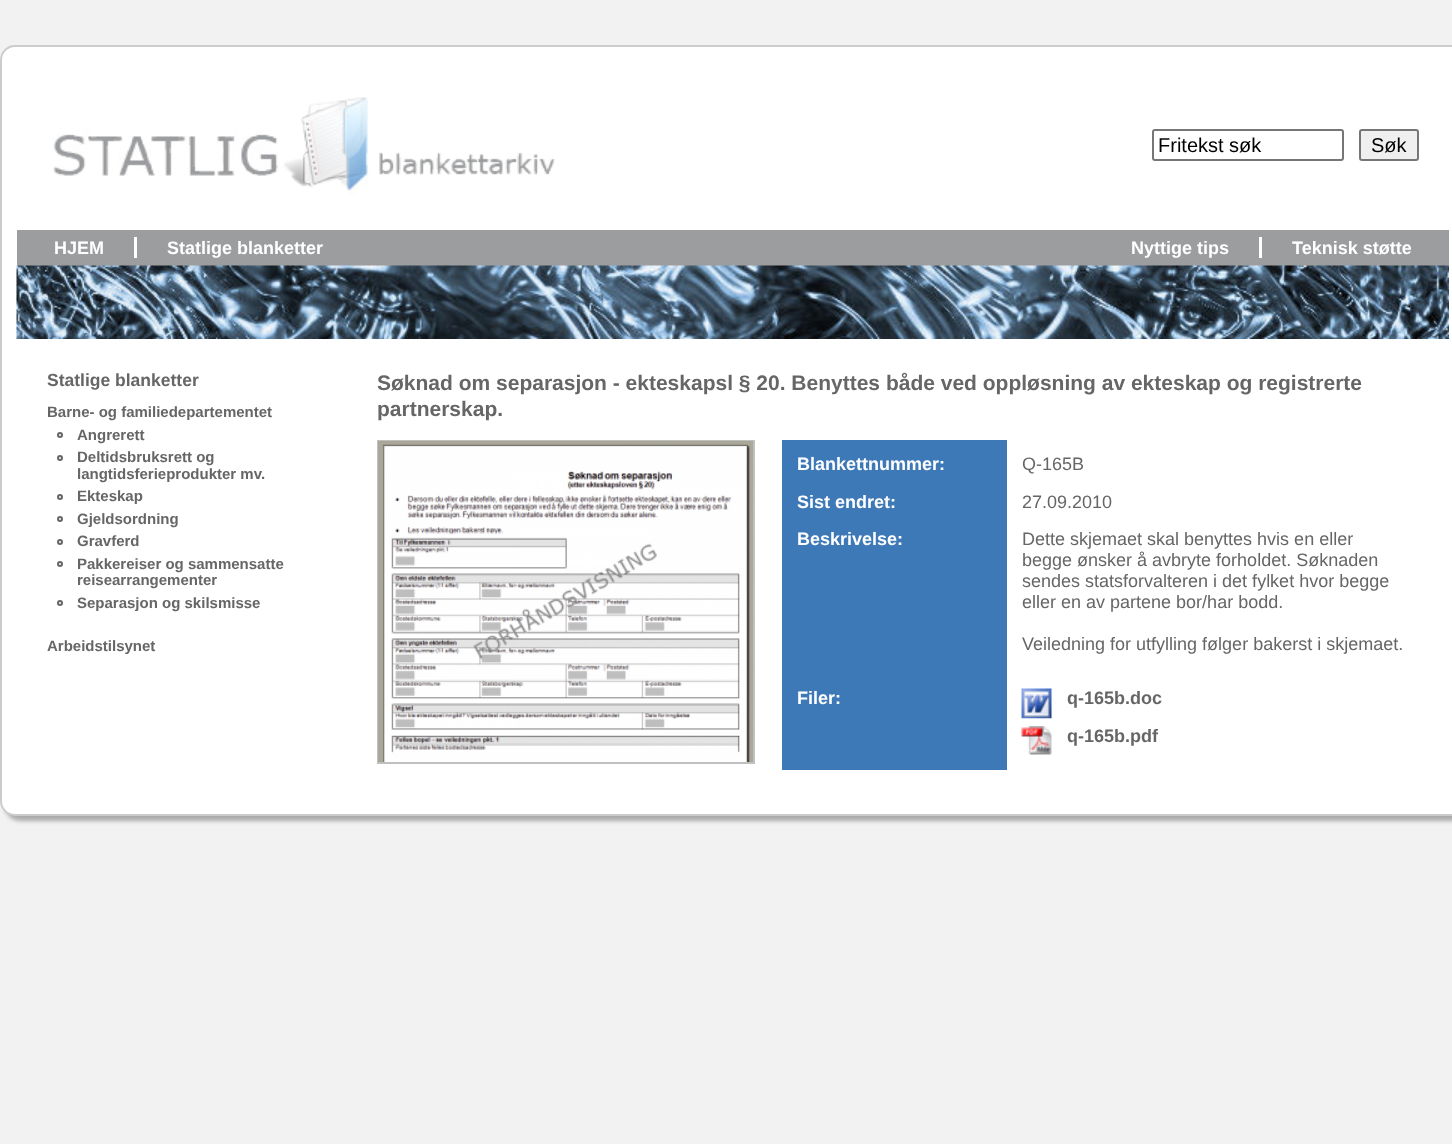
<?xml version="1.0" encoding="UTF-8"?>
<svg xmlns="http://www.w3.org/2000/svg" width="1452" height="1144">
    <defs>
        <filter id="blur1" x="-50%" y="-200%" width="200%" height="500%"><feGaussianBlur stdDeviation="2"/></filter>
    </defs>
    <rect width="100%" height="100%" fill="#F2F2F2"/>
    <rect x="5" y="50" width="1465" height="771" rx="15" fill="#AAAAAA" filter="url(#blur1)"/>
    <rect x="1" y="46" width="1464" height="769" rx="14" fill="#FFFFFF" stroke="#CCCCCC" stroke-width="2"/>
    <image x="53" y="97" width="503" height="101" href="img_01.png"/>
    <rect x="1153" y="130" width="190" height="30" rx="2" fill="none" stroke="#767676" stroke-width="2"/>
    <text x="1158" y="152" font-family="Liberation Sans" font-size="20" fill="#000000">Fritekst søk</text>
    <rect x="1360" y="130" width="58" height="30" rx="2" fill="#EFEFEF" stroke="#767676" stroke-width="2"/>
    <text x="1371" y="152" font-family="Liberation Sans" font-size="20" fill="#000000">Søk</text>
    <rect x="17" y="230" width="1432" height="36" fill="#9C9D9F"/>
    <image x="16" y="265" width="1433" height="74" href="img_02.png"/>
    <text x="54" y="254" font-family="Liberation Sans" font-size="18" font-weight="700" fill="#FFFFFF">HJEM</text>
    <rect x="134" y="237" width="3" height="21" fill="#FFFFFF"/>
    <text x="167" y="254" font-family="Liberation Sans" font-size="18" font-weight="700" fill="#FFFFFF">Statlige blanketter</text>
    <text x="1131" y="254" font-family="Liberation Sans" font-size="18" font-weight="700" fill="#FFFFFF">Nyttige tips</text>
    <rect x="1259" y="237" width="3" height="21" fill="#FFFFFF"/>
    <text x="1292" y="254" font-family="Liberation Sans" font-size="18" font-weight="700" fill="#FFFFFF">Teknisk støtte</text>
    <text x="47" y="386" font-family="Liberation Sans" font-size="17.5" font-weight="700" fill="#666666">Statlige blanketter</text>
    <text x="47" y="417" font-family="Liberation Sans" font-size="15" font-weight="700" fill="#666666">Barne- og familiedepartementet</text>
    <circle cx="60" cy="435" r="2" fill="none" stroke="#666666" stroke-width="2"/>
    <text x="77" y="440" font-family="Liberation Sans" font-size="15" font-weight="700" fill="#666666">Angrerett</text>
    <circle cx="60" cy="458" r="2" fill="none" stroke="#666666" stroke-width="2"/>
    <text font-family="Liberation Sans" font-size="15" font-weight="700" fill="#666666">
        <tspan x="77" y="462">Deltidsbruksrett og</tspan>
        <tspan x="77" y="479">langtidsferieprodukter mv.</tspan>
    </text>
    <circle cx="60" cy="497" r="2" fill="none" stroke="#666666" stroke-width="2"/>
    <text x="77" y="501" font-family="Liberation Sans" font-size="15" font-weight="700" fill="#666666">Ekteskap</text>
    <circle cx="60" cy="519" r="2" fill="none" stroke="#666666" stroke-width="2"/>
    <text x="77" y="524" font-family="Liberation Sans" font-size="15" font-weight="700" fill="#666666">Gjeldsordning</text>
    <circle cx="60" cy="542" r="2" fill="none" stroke="#666666" stroke-width="2"/>
    <text x="77" y="546" font-family="Liberation Sans" font-size="15" font-weight="700" fill="#666666">Gravferd</text>
    <circle cx="60" cy="564" r="2" fill="none" stroke="#666666" stroke-width="2"/>
    <text font-family="Liberation Sans" font-size="15" font-weight="700" fill="#666666">
        <tspan x="77" y="569">Pakkereiser og sammensatte</tspan>
        <tspan x="77" y="585">reisearrangementer</tspan>
    </text>
    <circle cx="60" cy="603" r="2" fill="none" stroke="#666666" stroke-width="2"/>
    <text x="77" y="608" font-family="Liberation Sans" font-size="15" font-weight="700" fill="#666666">Separasjon og skilsmisse</text>
    <text x="47" y="651" font-family="Liberation Sans" font-size="15" font-weight="700" fill="#666666">Arbeidstilsynet</text>
    <text font-family="Liberation Sans" font-size="21" font-weight="700" fill="#666666">
        <tspan x="377" y="390">Søknad om separasjon - ekteskapsl § 20. Benyttes både ved oppløsning av ekteskap og registrerte</tspan>
        <tspan x="377" y="416">partnerskap.</tspan>
    </text>
    <rect x="378" y="441" width="376" height="322" fill="none" stroke="#C0C0C0" stroke-width="2"/>
    <image x="378" y="441" width="375" height="321" href="img_03.png"/>
    <rect x="782" y="440" width="225" height="330" fill="#3D79B6"/>
    <text x="797" y="470" font-family="Liberation Sans" font-size="18" font-weight="700" fill="#FFFFFF">Blankettnummer:</text>
    <text x="1022" y="470" font-family="Liberation Sans" font-size="18" fill="#666666">Q-165B</text>
    <text x="797" y="508" font-family="Liberation Sans" font-size="18" font-weight="700" fill="#FFFFFF">Sist endret:</text>
    <text x="1022" y="508" font-family="Liberation Sans" font-size="18" fill="#666666">27.09.2010</text>
    <text x="797" y="545" font-family="Liberation Sans" font-size="18" font-weight="700" fill="#FFFFFF">Beskrivelse:</text>
    <text font-family="Liberation Sans" font-size="18" fill="#666666">
        <tspan x="1022" y="545">Dette skjemaet skal benyttes hvis en eller</tspan>
        <tspan x="1022" y="566">begge ønsker å avbryte forholdet. Søknaden</tspan>
        <tspan x="1022" y="587">sendes statsforvalteren i det fylket hvor begge</tspan>
        <tspan x="1022" y="608">eller en av partene bor/har bodd.</tspan>
    </text>
    <text x="1022" y="650" font-family="Liberation Sans" font-size="18" fill="#666666">Veiledning for utfylling følger bakerst i skjemaet.</text>
    <text x="797" y="704" font-family="Liberation Sans" font-size="18" font-weight="700" fill="#FFFFFF">Filer:</text>
    <image x="1021" y="688" width="31" height="31" href="img_04.png"/>
    <text x="1067" y="704" font-family="Liberation Sans" font-size="18" font-weight="700" fill="#666666">q-165b.doc</text>
    <image x="1021" y="726" width="31" height="29" href="img_05.png"/>
    <text x="1067" y="742" font-family="Liberation Sans" font-size="18" font-weight="700" fill="#666666">q-165b.pdf</text>
</svg>
